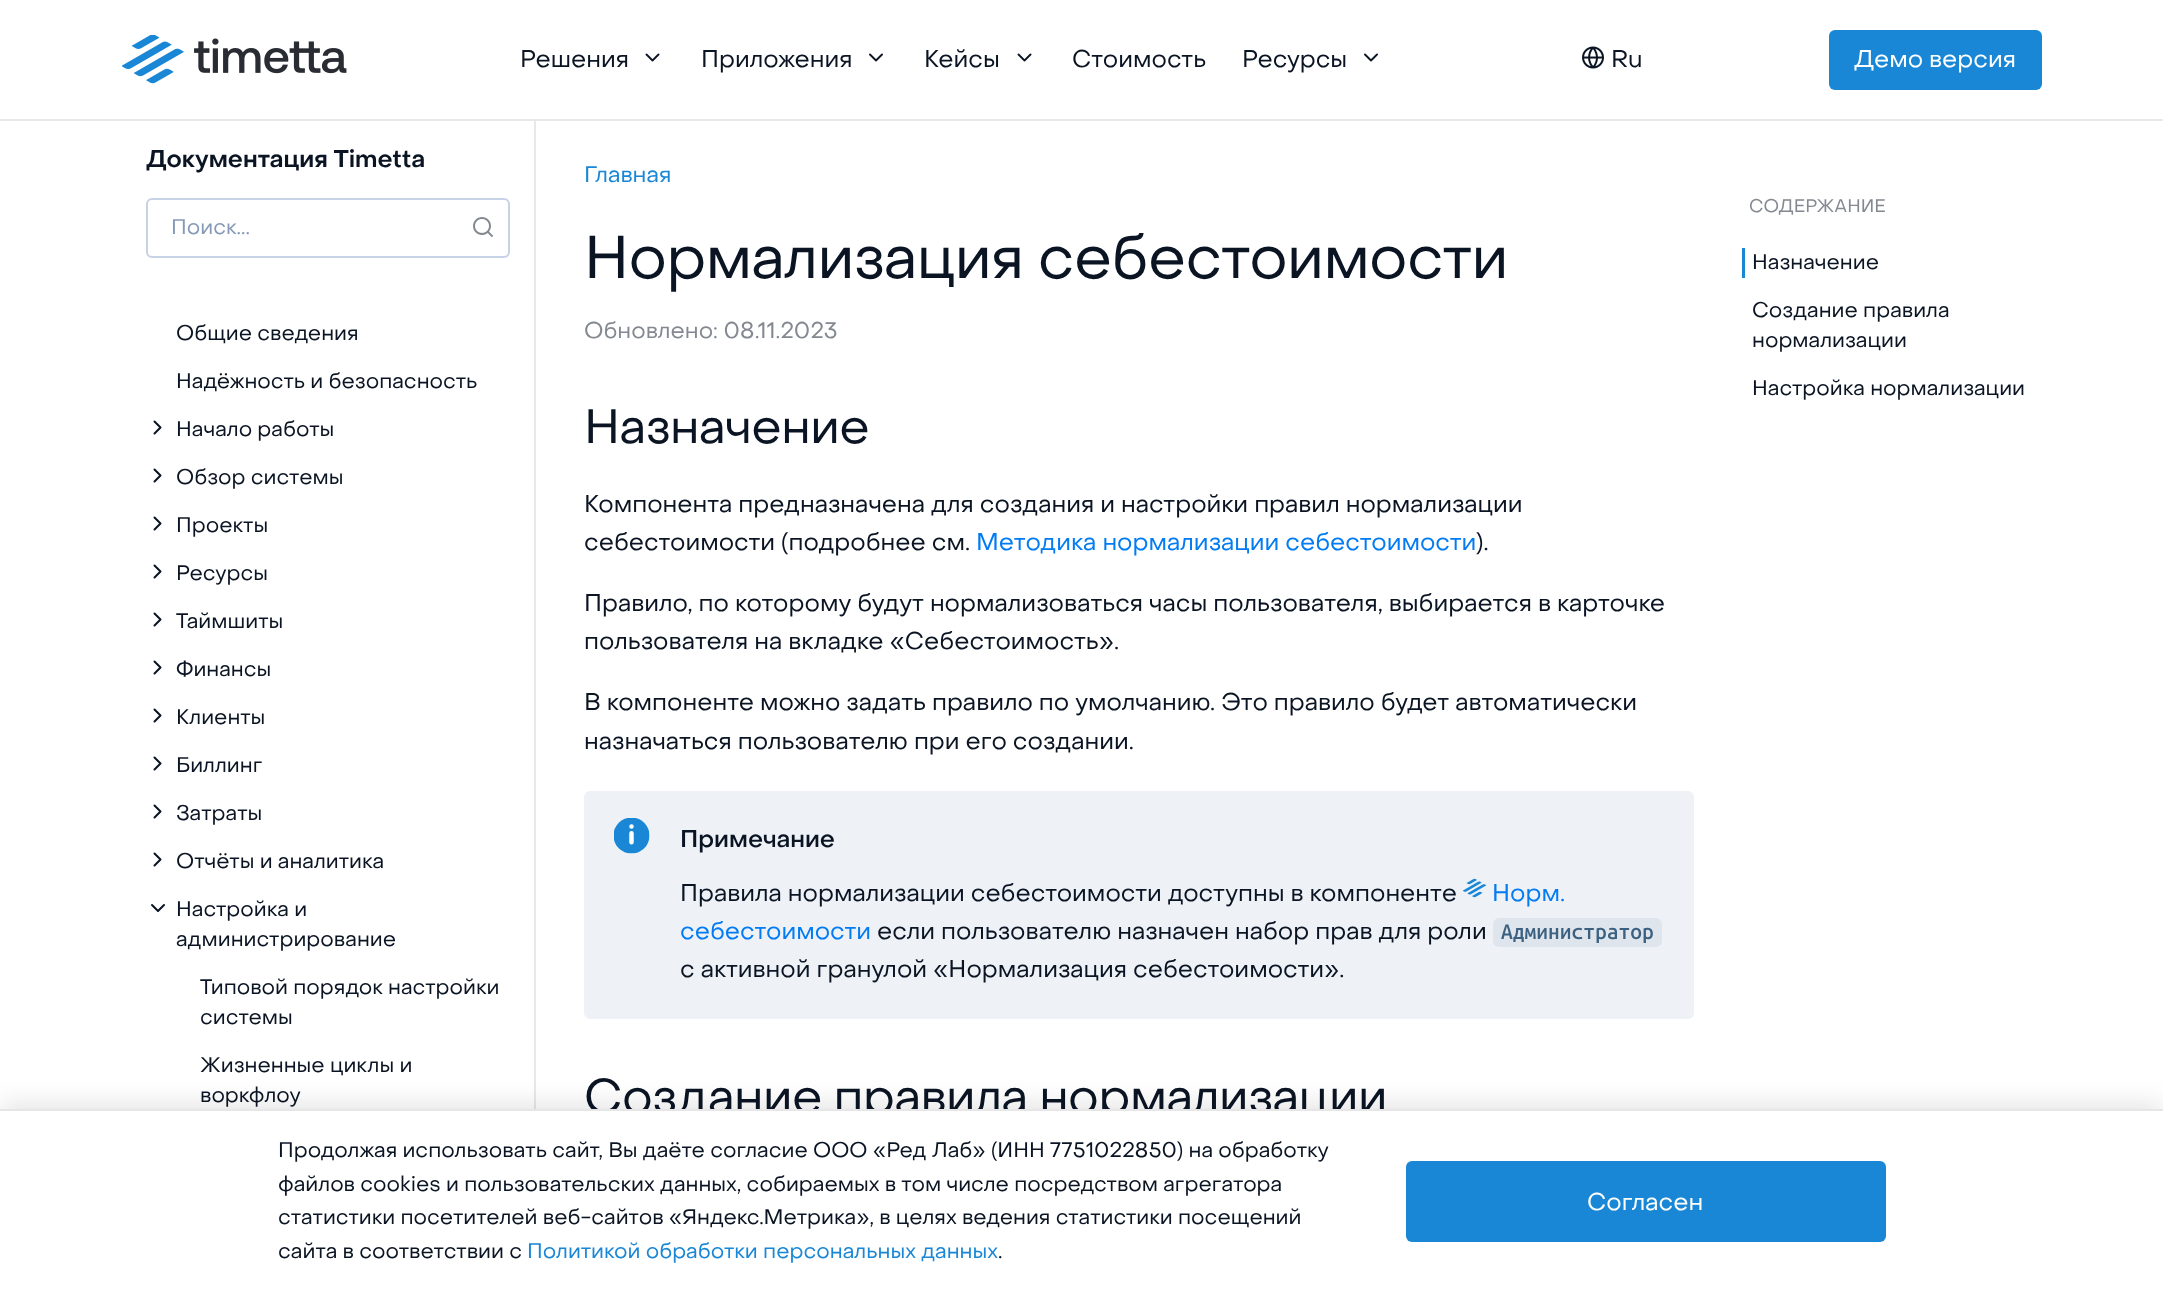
<?xml version="1.0" encoding="UTF-8"?>
<svg xmlns="http://www.w3.org/2000/svg" width="2163" height="1293">
    <defs>
        <filter id="blur1" x="-50%" y="-200%" width="200%" height="500%"><feGaussianBlur stdDeviation="12"/></filter>
    </defs>
    <rect width="100%" height="100%" fill="#FFFFFF"/>
    <rect x="534" y="120" width="2" height="989" fill="#E7E8E9"/>
    <rect x="0" y="119" width="2163" height="2" fill="#E7E8E9"/>
    <image x="122" y="35" width="225" height="49" href="img_01.png"/>
    <text x="520" y="67" font-family="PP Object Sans" font-size="24" fill="#0A1423">Решения</text>
    <image x="645" y="53" width="15" height="9" href="img_02.png"/>
    <text x="701" y="67" font-family="PP Object Sans" font-size="24" fill="#0A1423">Приложения</text>
    <image x="869" y="53" width="14" height="9" href="img_03.png"/>
    <text x="924" y="67" font-family="PP Object Sans" font-size="24" fill="#0A1423">Кейсы</text>
    <image x="1017" y="53" width="15" height="9" href="img_02.png"/>
    <text x="1072" y="67" font-family="PP Object Sans" font-size="24" fill="#0A1423">Стоимость</text>
    <text x="1242" y="67" font-family="PP Object Sans" font-size="24" fill="#0A1423">Ресурсы</text>
    <image x="1364" y="53" width="14" height="9" href="img_03.png"/>
    <image x="1582" y="46" width="22" height="23" href="img_04.png"/>
    <text x="1611" y="67" font-family="PP Object Sans" font-size="24" fill="#0A1423">Ru</text>
    <rect x="1829" y="30" width="213" height="60" rx="6" fill="#1987D6"/>
    <text x="1854" y="67" font-family="PP Object Sans" font-size="24" fill="#FFFFFF">Демо версия</text>
    <text x="146" y="167" font-family="PP Object Sans" font-size="24" font-weight="600" fill="#0A1423">Документация Timetta</text>
    <rect x="147" y="199" width="362" height="58" rx="5" fill="none" stroke="#C6D3E6" stroke-width="2"/>
    <text x="171" y="234" font-family="PP Object Sans" font-size="21" fill="#869AB8">Поиск...</text>
    <image x="473" y="217" width="20" height="20" href="img_05.png"/>
    <text x="176" y="340" font-family="PP Object Sans" font-size="21" fill="#0A1423">Общие сведения</text>
    <text x="176" y="388" font-family="PP Object Sans" font-size="21" fill="#0A1423">Надёжность и безопасность</text>
    <path d="M 154.5 433.5 L 160.5 427.5 L 154.5 421.5" fill="none" stroke="#0A1423" stroke-width="2" stroke-linecap="round" stroke-linejoin="round"/>
    <text x="176" y="436" font-family="PP Object Sans" font-size="21" fill="#0A1423">Начало работы</text>
    <path d="M 154.5 481.5 L 160.5 475.5 L 154.5 469.5" fill="none" stroke="#0A1423" stroke-width="2" stroke-linecap="round" stroke-linejoin="round"/>
    <text x="176" y="484" font-family="PP Object Sans" font-size="21" fill="#0A1423">Обзор системы</text>
    <path d="M 154.5 529.5 L 160.5 523.5 L 154.5 517.5" fill="none" stroke="#0A1423" stroke-width="2" stroke-linecap="round" stroke-linejoin="round"/>
    <text x="176" y="532" font-family="PP Object Sans" font-size="21" fill="#0A1423">Проекты</text>
    <path d="M 154.5 577.5 L 160.5 571.5 L 154.5 565.5" fill="none" stroke="#0A1423" stroke-width="2" stroke-linecap="round" stroke-linejoin="round"/>
    <text x="176" y="580" font-family="PP Object Sans" font-size="21" fill="#0A1423">Ресурсы</text>
    <path d="M 154.5 625.5 L 160.5 619.5 L 154.5 613.5" fill="none" stroke="#0A1423" stroke-width="2" stroke-linecap="round" stroke-linejoin="round"/>
    <text x="176" y="628" font-family="PP Object Sans" font-size="21" fill="#0A1423">Таймшиты</text>
    <path d="M 154.5 673.5 L 160.5 667.5 L 154.5 661.5" fill="none" stroke="#0A1423" stroke-width="2" stroke-linecap="round" stroke-linejoin="round"/>
    <text x="176" y="676" font-family="PP Object Sans" font-size="21" fill="#0A1423">Финансы</text>
    <path d="M 154.5 721.5 L 160.5 715.5 L 154.5 709.5" fill="none" stroke="#0A1423" stroke-width="2" stroke-linecap="round" stroke-linejoin="round"/>
    <text x="176" y="724" font-family="PP Object Sans" font-size="21" fill="#0A1423">Клиенты</text>
    <path d="M 154.5 769.5 L 160.5 763.5 L 154.5 757.5" fill="none" stroke="#0A1423" stroke-width="2" stroke-linecap="round" stroke-linejoin="round"/>
    <text x="176" y="772" font-family="PP Object Sans" font-size="21" fill="#0A1423">Биллинг</text>
    <path d="M 154.5 817.5 L 160.5 811.5 L 154.5 805.5" fill="none" stroke="#0A1423" stroke-width="2" stroke-linecap="round" stroke-linejoin="round"/>
    <text x="176" y="820" font-family="PP Object Sans" font-size="21" fill="#0A1423">Затраты</text>
    <path d="M 154.5 865.5 L 160.5 859.5 L 154.5 853.5" fill="none" stroke="#0A1423" stroke-width="2" stroke-linecap="round" stroke-linejoin="round"/>
    <text x="176" y="868" font-family="PP Object Sans" font-size="21" fill="#0A1423">Отчёты и аналитика</text>
    <path d="M 152 905 L 158 911 L 164 905" fill="none" stroke="#0A1423" stroke-width="2" stroke-linecap="round" stroke-linejoin="round"/>
    <text font-family="PP Object Sans" font-size="21" fill="#0A1423">
        <tspan x="176" y="916">Настройка и</tspan>
        <tspan x="176" y="946">администрирование</tspan>
    </text>
    <text font-family="PP Object Sans" font-size="21" fill="#0A1423">
        <tspan x="200" y="994">Типовой порядок настройки</tspan>
        <tspan x="200" y="1024">системы</tspan>
    </text>
    <text font-family="PP Object Sans" font-size="21" fill="#0A1423">
        <tspan x="200" y="1072">Жизненные циклы и</tspan>
        <tspan x="200" y="1102">воркфлоу</tspan>
    </text>
    <text x="584" y="182" font-family="PP Object Sans" font-size="22.5" fill="#1987D6">Главная</text>
    <text x="584" y="278" font-family="PP Object Sans" font-size="60" letter-spacing="-0.6" fill="#0A1423">Нормализация себестоимости</text>
    <text x="584" y="338" font-family="PP Object Sans" font-size="22.5" fill="#848991">Обновлено: 08.11.2023</text>
    <text x="584" y="443" font-family="PP Object Sans" font-size="48" letter-spacing="-0.5" fill="#0A1423">Назначение</text>
    <text font-family="PP Object Sans" font-size="24" fill="#0A1423">
        <tspan x="584" y="512">Компонента предназначена для создания и настройки правил нормализации</tspan>
        <tspan x="584" y="550">себестоимости (подробнее см.</tspan>
    </text>
    <text x="976" y="550" font-family="PP Object Sans" font-size="24" fill="#027BF3">Методика нормализации себестоимости</text>
    <text x="1476" y="550" font-family="PP Object Sans" font-size="24" fill="#0A1423">).</text>
    <text font-family="PP Object Sans" font-size="24" fill="#0A1423">
        <tspan x="584" y="611">Правило, по которому будут нормализоваться часы пользователя, выбирается в карточке</tspan>
        <tspan x="584" y="649">пользователя на вкладке «Себестоимость».</tspan>
    </text>
    <text font-family="PP Object Sans" font-size="24" fill="#0A1423">
        <tspan x="584" y="710">В компоненте можно задать правило по умолчанию. Это правило будет автоматически</tspan>
        <tspan x="584" y="749">назначаться пользователю при его создании.</tspan>
    </text>
    <rect x="584" y="791" width="1110" height="228" rx="6" fill="#EEF2F7"/>
    <image x="614" y="818" width="36" height="36" href="img_06.png"/>
    <text x="680" y="847" font-family="PP Object Sans" font-size="24" font-weight="500" fill="#0A1423">Примечание</text>
    <text x="680" y="901" font-family="PP Object Sans" font-size="24" fill="#0A1423">Правила нормализации себестоимости доступны в компоненте</text>
    <image x="1463" y="878" width="24" height="20" href="img_07.png"/>
    <text x="1492" y="901" font-family="PP Object Sans" font-size="24" fill="#027BF3">Норм.</text>
    <text x="680" y="939" font-family="PP Object Sans" font-size="24" fill="#027BF3">себестоимости</text>
    <text x="877" y="939" font-family="PP Object Sans" font-size="24" fill="#0A1423">если пользователю назначен набор прав для роли</text>
    <rect x="1493" y="918" width="169" height="29" rx="6" fill="#DEE5EC"/>
    <text x="1501" y="939" font-family="Ubuntu Mono" font-size="21" font-weight="500" fill="#3B6080">Администратор</text>
    <text x="680" y="977" font-family="PP Object Sans" font-size="24" fill="#0A1423">с активной гранулой «Нормализация себестоимости».</text>
    <text x="584" y="1113" font-family="PP Object Sans" font-size="48" letter-spacing="-0.5" fill="#0A1423">Создание правила нормализации</text>
    <text x="1749" y="212" font-family="PP Object Sans" font-size="18" fill="#848991">СОДЕРЖАНИЕ</text>
    <rect x="1742" y="248" width="3" height="30" fill="#1987D6"/>
    <text x="1752" y="269" font-family="PP Object Sans" font-size="21" fill="#0A1423">Назначение</text>
    <text font-family="PP Object Sans" font-size="21" fill="#0A1423">
        <tspan x="1752" y="317">Создание правила</tspan>
        <tspan x="1752" y="347">нормализации</tspan>
    </text>
    <text x="1752" y="395" font-family="PP Object Sans" font-size="21" fill="#0A1423">Настройка нормализации</text>
    <rect x="0" y="1103" width="2163" height="184" fill="#000000" fill-opacity="0.1" filter="url(#blur1)"/>
    <rect x="0" y="1111" width="2163" height="182" fill="#FFFFFF"/>
    <rect x="0" y="1109" width="2163" height="2" fill="#E6E6E6"/>
    <text font-family="PP Object Sans" font-size="21" fill="#0A1423">
        <tspan x="278" y="1157">Продолжая использовать сайт, Вы даёте согласие ООО «Ред Лаб» (ИНН 7751022850) на обработку</tspan>
        <tspan x="278" y="1191">файлов cookies и пользовательских данных, собираемых в том числе посредством агрегатора</tspan>
        <tspan x="278" y="1224">статистики посетителей веб-сайтов «Яндекс.Метрика», в целях ведения статистики посещений</tspan>
        <tspan x="278" y="1258">сайта в соответствии с</tspan>
    </text>
    <text x="527" y="1258" font-family="PP Object Sans" font-size="21" fill="#1987D6">Политикой обработки персональных данных</text>
    <text x="998" y="1258" font-family="PP Object Sans" font-size="21" fill="#0A1423">.</text>
    <rect x="1406" y="1161" width="480" height="81" rx="6" fill="#1987D6"/>
    <text x="1587" y="1210" font-family="PP Object Sans" font-size="24" fill="#FFFFFF">Согласен</text>
</svg>
